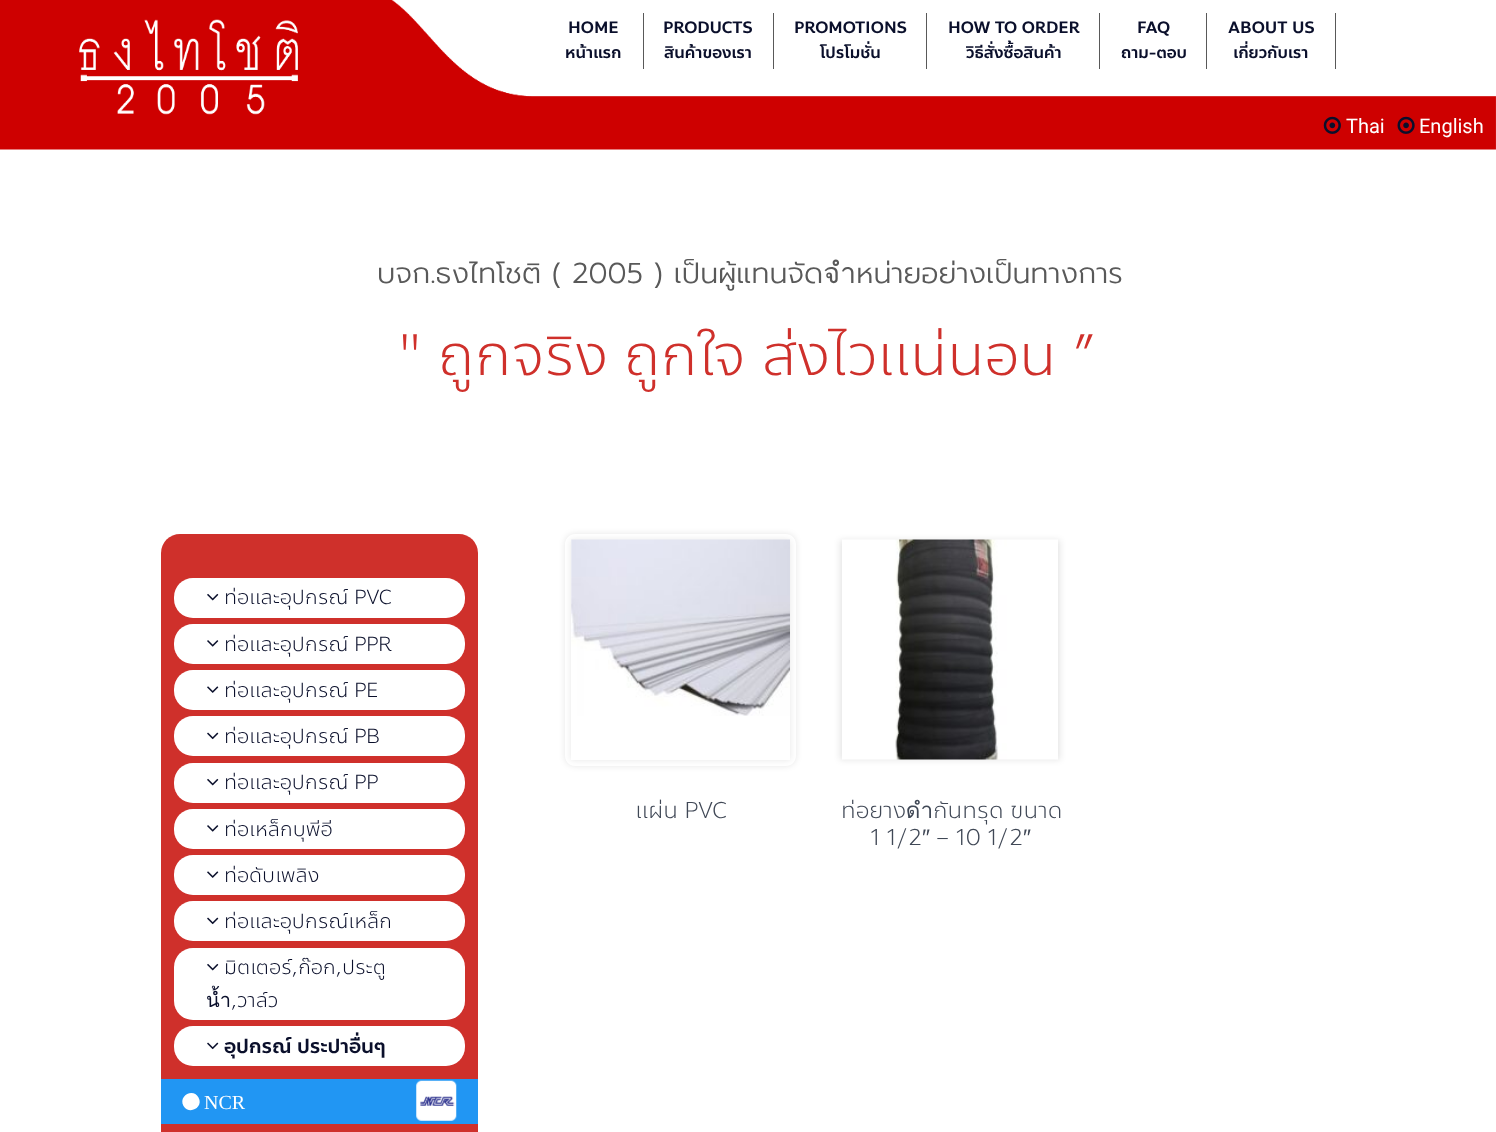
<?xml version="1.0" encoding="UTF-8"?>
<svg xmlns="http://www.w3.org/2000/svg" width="1496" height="1132">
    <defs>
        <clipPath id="clip1"><path d="M 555 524 H 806 V 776 H 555 Z M 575 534 H 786 C 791.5 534 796 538.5 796 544 V 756 C 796 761.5 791.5 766 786 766 H 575 C 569.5 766 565 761.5 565 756 V 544 C 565 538.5 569.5 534 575 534 Z" clip-rule="evenodd"/></clipPath>
        <filter id="blur1" x="-50%" y="-200%" width="200%" height="500%"><feGaussianBlur stdDeviation="3"/></filter>
        <clipPath id="clip2"><path d="M 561 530 H 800 V 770 H 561 Z M 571 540 H 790 V 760 H 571 Z" clip-rule="evenodd"/></clipPath>
    </defs>
    <rect width="100%" height="100%" fill="#FFFFFF"/>
    <image x="0" y="0" width="1496" height="150" href="img_01.png"/>
    <rect x="643" y="13" width="1" height="56" fill="#595959"/>
    <text x="568" y="33" font-family="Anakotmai" font-size="16.25" font-weight="500" fill="#0A0F2B">HOME</text>
    <text x="565" y="58" font-family="Anakotmai" font-size="16.25" font-weight="500" fill="#0A0F2B">หน้าแรก</text>
    <rect x="773" y="13" width="1" height="56" fill="#595959"/>
    <text x="663" y="33" font-family="Anakotmai" font-size="16.25" font-weight="500" fill="#0A0F2B">PRODUCTS</text>
    <text x="664" y="58" font-family="Anakotmai" font-size="16.25" font-weight="500" fill="#0A0F2B">สินค้าของเรา</text>
    <rect x="926" y="13" width="1" height="56" fill="#595959"/>
    <text x="794" y="33" font-family="Anakotmai" font-size="16.25" font-weight="500" fill="#0A0F2B">PROMOTIONS</text>
    <text x="820" y="58" font-family="Anakotmai" font-size="16.25" font-weight="500" fill="#0A0F2B">โปรโมชั่น</text>
    <rect x="1099" y="13" width="1" height="56" fill="#595959"/>
    <text x="948" y="33" font-family="Anakotmai" font-size="16.25" font-weight="500" fill="#0A0F2B">HOW TO ORDER</text>
    <text x="966" y="58" font-family="Anakotmai" font-size="16.25" font-weight="500" fill="#0A0F2B">วิธีสั่งซื้อสินค้า</text>
    <rect x="1206" y="13" width="1" height="56" fill="#595959"/>
    <text x="1137" y="33" font-family="Anakotmai" font-size="16.25" font-weight="500" fill="#0A0F2B">FAQ</text>
    <text x="1121" y="58" font-family="Anakotmai" font-size="16.25" font-weight="500" fill="#0A0F2B">ถาม-ตอบ</text>
    <rect x="1335" y="13" width="1" height="56" fill="#595959"/>
    <text x="1228" y="33" font-family="Anakotmai" font-size="16.25" font-weight="500" fill="#0A0F2B">ABOUT US</text>
    <text x="1233" y="58" font-family="Anakotmai" font-size="16.25" font-weight="500" fill="#0A0F2B">เกี่ยวกับเรา</text>
    <image x="1323" y="116" width="18" height="18" href="img_02.png"/>
    <text x="1346" y="133" font-family="Roboto" font-size="20" fill="#FFFFFF">Thai</text>
    <image x="1397" y="116" width="18" height="18" href="img_03.png"/>
    <text x="1419" y="133" font-family="Roboto" font-size="20" fill="#FFFFFF">English</text>
    <text x="377" y="283" font-family="Prompt" font-size="28.75" font-weight="300" fill="#595959">บจก.ธงไทโชติ ( 2005 ) เป็นผู้แทนจัดจำหน่ายอย่างเป็นทางการ</text>
    <text x="398" y="375" font-family="Anakotmai" font-size="57.4" font-weight="300" fill="#CF302B">" ถูกจริง ถูกใจ ส่งไวแน่นอน ”</text>
    <rect x="161" y="534" width="317" height="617" rx="19" fill="#CF302B"/>
    <rect x="174" y="578" width="291" height="40" rx="19" fill="#FFFFFF"/>
    <image x="207" y="593" width="12" height="8" href="img_04.png"/>
    <text x="224" y="604" font-family="Anakotmai" font-size="20" font-weight="300" fill="#0A0F2B">ท่อและอุปกรณ์ PVC</text>
    <rect x="174" y="624" width="291" height="40" rx="19" fill="#FFFFFF"/>
    <image x="207" y="640" width="12" height="7" href="img_05.png"/>
    <text x="224" y="651" font-family="Anakotmai" font-size="20" font-weight="300" fill="#0A0F2B">ท่อและอุปกรณ์ PPR</text>
    <rect x="174" y="670" width="291" height="40" rx="19" fill="#FFFFFF"/>
    <image x="207" y="686" width="12" height="7" href="img_06.png"/>
    <text x="224" y="697" font-family="Anakotmai" font-size="20" font-weight="300" fill="#0A0F2B">ท่อและอุปกรณ์ PE</text>
    <rect x="174" y="716" width="291" height="40" rx="19" fill="#FFFFFF"/>
    <image x="207" y="732" width="12" height="8" href="img_07.png"/>
    <text x="224" y="743" font-family="Anakotmai" font-size="20" font-weight="300" fill="#0A0F2B">ท่อและอุปกรณ์ PB</text>
    <rect x="174" y="763" width="291" height="40" rx="19" fill="#FFFFFF"/>
    <image x="207" y="778" width="12" height="8" href="img_04.png"/>
    <text x="224" y="789" font-family="Anakotmai" font-size="20" font-weight="300" fill="#0A0F2B">ท่อและอุปกรณ์ PP</text>
    <rect x="174" y="809" width="291" height="40" rx="19" fill="#FFFFFF"/>
    <image x="207" y="825" width="12" height="7" href="img_05.png"/>
    <text x="224" y="836" font-family="Anakotmai" font-size="20" font-weight="300" fill="#0A0F2B">ท่อเหล็กบุพีอี</text>
    <rect x="174" y="855" width="291" height="40" rx="19" fill="#FFFFFF"/>
    <image x="207" y="871" width="12" height="7" href="img_06.png"/>
    <text x="224" y="882" font-family="Anakotmai" font-size="20" font-weight="300" fill="#0A0F2B">ท่อดับเพลิง</text>
    <rect x="174" y="901" width="291" height="40" rx="19" fill="#FFFFFF"/>
    <image x="207" y="917" width="12" height="8" href="img_07.png"/>
    <text x="224" y="928" font-family="Anakotmai" font-size="20" font-weight="300" fill="#0A0F2B">ท่อและอุปกรณ์เหล็ก</text>
    <rect x="174" y="948" width="291" height="72" rx="19" fill="#FFFFFF"/>
    <image x="207" y="963" width="12" height="8" href="img_04.png"/>
    <text x="224" y="974" font-family="Anakotmai" font-size="20" font-weight="300" fill="#0A0F2B">มิตเตอร์,ก๊อก,ประตู</text>
    <text x="206" y="1007" font-family="Anakotmai" font-size="20" font-weight="300" fill="#0A0F2B">น้ำ,วาล์ว</text>
    <rect x="174" y="1026" width="291" height="40" rx="19" fill="#FFFFFF"/>
    <image x="207" y="1042" width="12" height="8" href="img_07.png"/>
    <text x="224" y="1053" font-family="Anakotmai" font-size="20" font-weight="500" fill="#0A0F2B">อุปกรณ์ ประปาอื่นๆ</text>
    <rect x="161" y="1079" width="317" height="45" fill="#2196F3"/>
    <path d="M 198.5 1097.5 C 204 1107 189.5 1115.5 183.5 1106 C 178 1096 193 1087.5 198.5 1097.5 Z" fill="#FFFFFF"/>
    <text x="204" y="1109" font-family="Liberation Serif" font-size="20" fill="#FFFFFF">NCR</text>
    <image x="416" y="1080" width="41" height="41" href="img_08.png"/>
    <g clip-path="url(#clip1)">
        <rect x="565" y="534" width="231" height="232" rx="10" fill="#000000" fill-opacity="0.1" filter="url(#blur1)"/>
    </g>
    <g clip-path="url(#clip2)">
        <rect x="571" y="540" width="219" height="220" fill="#000000" fill-opacity="0.1" filter="url(#blur1)"/>
    </g>
    <image x="571" y="539" width="219" height="177" href="img_09.png"/>
    <text x="635" y="818" font-family="Anakotmai" font-size="22.5" font-weight="300" fill="#404856">แผ่น PVC</text>
    <rect x="840" y="540" width="220" height="220" fill="#000000" fill-opacity="0.1" filter="url(#blur1)"/>
    <image x="842" y="539" width="216" height="221" href="img_10.png"/>
    <text x="841" y="818" font-family="Anakotmai" font-size="22.5" font-weight="300" fill="#404856">ท่อยางดำกันทรุด ขนาด</text>
    <text x="870" y="845" font-family="Anakotmai" font-size="22.5" font-weight="300" fill="#404856">1 1/2</text>
    <text x="922" y="845" font-family="Liberation Sans" font-size="22.5" fill="#404856">″</text>
    <text x="936" y="845" font-family="Anakotmai" font-size="22.5" font-weight="300" fill="#404856">– 10 1/2</text>
    <text x="1023" y="845" font-family="Liberation Sans" font-size="22.5" fill="#404856">″</text>
</svg>
